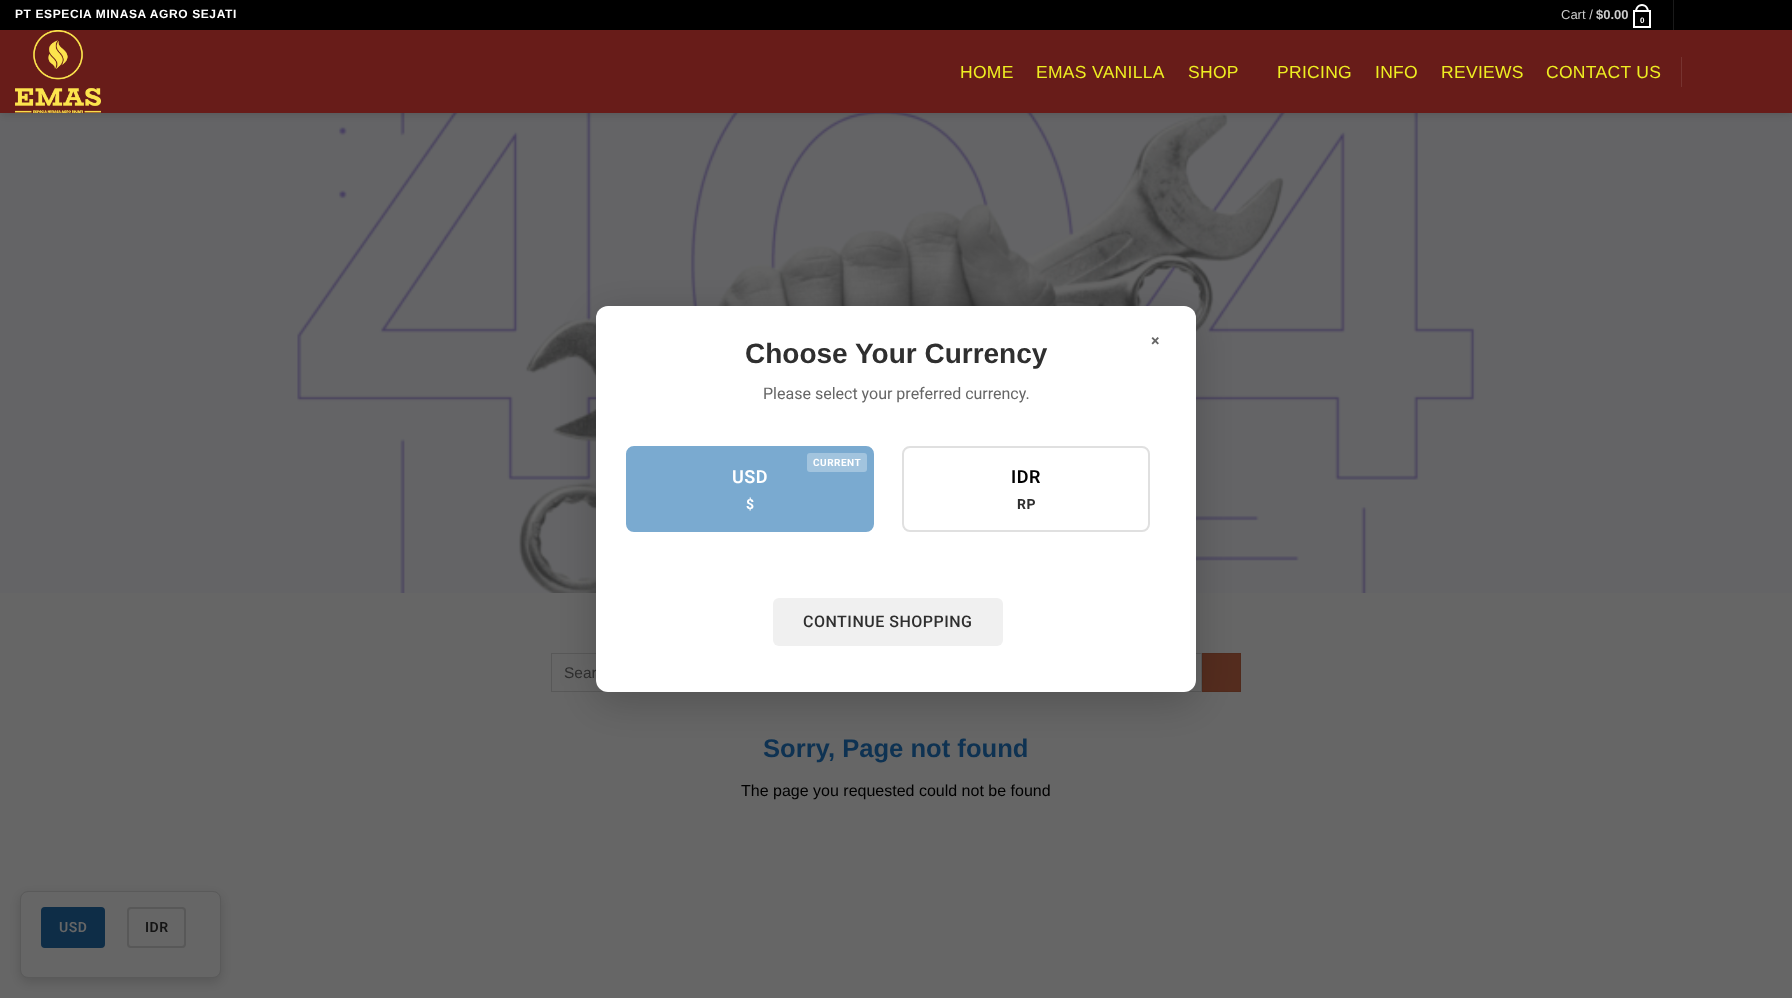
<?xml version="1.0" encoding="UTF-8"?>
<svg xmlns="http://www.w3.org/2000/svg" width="1792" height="998">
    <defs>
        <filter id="blur1" x="-50%" y="-200%" width="200%" height="500%"><feGaussianBlur stdDeviation="5"/></filter>
        <filter id="blur2" x="-50%" y="-200%" width="200%" height="500%"><feGaussianBlur stdDeviation="20"/></filter>
        <filter id="blur3" x="-50%" y="-200%" width="200%" height="500%"><feGaussianBlur stdDeviation="6"/></filter>
    </defs>
    <rect width="100%" height="100%" fill="#666666"/>
    <image x="0" y="113" width="1792" height="480" href="img_02.png"/>
    <rect x="1" y="1" width="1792" height="113" fill="#000000" fill-opacity="0.15" filter="url(#blur1)"/>
    <rect x="0" y="0" width="1792" height="30" fill="#000000"/>
    <text x="15" y="18" font-family="Liberation Sans" font-size="12" font-weight="700" letter-spacing="0.6" fill="#FFFFFF">PT ESPECIA MINASA AGRO SEJATI</text>
    <text x="1561" y="19" font-family="Liberation Sans" font-size="13" fill="#CCCCCC">Cart /</text>
    <text x="1596" y="19" font-family="Liberation Sans" font-size="13" font-weight="700" fill="#CCCCCC">$0.00</text>
    <rect x="1634" y="11" width="16" height="16" fill="none" stroke="#FFFFFF" stroke-width="2"/>
    <path d="M 1642 4 C 1646.5 4 1649 8 1649 12 H 1635 C 1635 8 1637.5 4 1642 4 Z M 1642 6 C 1645.5 6 1647 9 1647 12 H 1637 C 1637 9 1638.5 6 1642 6 Z" fill="#FFFFFF" fill-rule="evenodd"/>
    <text x="1640" y="23" font-family="Liberation Sans" font-size="8" font-weight="700" fill="#FFFFFF">0</text>
    <rect x="1673" y="0" width="1" height="30" fill="#1A1A1A"/>
    <rect x="0" y="30" width="1792" height="83" fill="#681C19"/>
    <image x="15" y="30" width="86" height="83" href="img_01.png"/>
    <text x="960" y="78" font-family="Liberation Sans" font-size="17.5" letter-spacing="0.3" fill="#EEEE22">HOME</text>
    <text x="1036" y="78" font-family="Liberation Sans" font-size="17.5" letter-spacing="0.3" fill="#EEEE22">EMAS VANILLA</text>
    <text x="1188" y="78" font-family="Liberation Sans" font-size="17.5" letter-spacing="0.3" fill="#EEEE22">SHOP</text>
    <text x="1277" y="78" font-family="Liberation Sans" font-size="17.5" letter-spacing="0.3" fill="#EEEE22">PRICING</text>
    <text x="1375" y="78" font-family="Liberation Sans" font-size="17.5" letter-spacing="0.3" fill="#EEEE22">INFO</text>
    <text x="1441" y="78" font-family="Liberation Sans" font-size="17.5" letter-spacing="0.3" fill="#EEEE22">REVIEWS</text>
    <text x="1546" y="78" font-family="Liberation Sans" font-size="17.5" letter-spacing="0.3" fill="#EEEE22">CONTACT US</text>
    <rect x="1681" y="57" width="1" height="30" fill="#773330"/>
    <rect x="551.5" y="653.5" width="650" height="38" fill="none" stroke="#585858"/>
    <text x="564" y="678" font-family="Liberation Sans" font-size="15.5" fill="#2F2F2F">Sear</text>
    <rect x="1202.5" y="653.5" width="38" height="38" fill="#542C1E" stroke="#502A1C"/>
    <text x="763" y="757" font-family="Liberation Sans" font-size="25.6" font-weight="700" fill="#0E3252">Sorry, Page not found</text>
    <text x="741" y="796" font-family="Liberation Sans" font-size="16" fill="#000000">The page you requested could not be found</text>
    <rect x="596" y="316" width="600" height="386" rx="12" fill="#000000" fill-opacity="0.2" filter="url(#blur2)"/>
    <rect x="596" y="306" width="600" height="386" rx="12" fill="#FFFFFF"/>
    <text x="1151" y="346" font-family="Roboto" font-size="16" font-weight="700" letter-spacing="0.5" fill="#666666">×</text>
    <text x="745" y="363" font-family="Liberation Sans" font-size="28" font-weight="700" fill="#2F2F2F">Choose Your Currency</text>
    <text x="763" y="399" font-family="Roboto" font-size="16" fill="#666666">Please select your preferred currency.</text>
    <rect x="627" y="447" width="246" height="84" rx="7" fill="#7AAAD0" stroke="#7AAAD0" stroke-width="2"/>
    <rect x="807" y="453" width="60" height="19" rx="3" fill="#A2C4DE"/>
    <text x="813" y="466" font-family="Roboto" font-size="10" font-weight="700" letter-spacing="0.5" fill="#FFFFFF">CURRENT</text>
    <text x="732" y="483" font-family="Roboto" font-size="18" font-weight="600" letter-spacing="0.5" fill="#FFFFFF">USD</text>
    <text x="746" y="509" font-family="Roboto" font-size="14" font-weight="700" letter-spacing="0.5" fill="#FFFFFF">$</text>
    <rect x="903" y="447" width="246" height="84" rx="7" fill="none" stroke="#E0E0E0" stroke-width="2"/>
    <text x="1011" y="483" font-family="Roboto" font-size="18" font-weight="600" letter-spacing="0.5" fill="#000000">IDR</text>
    <text x="1017" y="509" font-family="Roboto" font-size="14" font-weight="700" letter-spacing="0.5" fill="#2F2F2F">RP</text>
    <rect x="773" y="598" width="230" height="48" rx="6" fill="#F0F0F0"/>
    <text x="803" y="627" font-family="Roboto" font-size="16" font-weight="500" letter-spacing="0.5" fill="#2F2F2F">CONTINUE SHOPPING</text>
    <rect x="20" y="895" width="201" height="87" rx="8" fill="#000000" fill-opacity="0.15" filter="url(#blur3)"/>
    <rect x="20.5" y="891.5" width="200" height="86" rx="7.5" fill="#666666" stroke="#5A5A5A"/>
    <rect x="42" y="908" width="62" height="39" rx="3" fill="#0E2D47" stroke="#0E2D47" stroke-width="2"/>
    <text x="59" y="932" font-family="Roboto" font-size="14" font-weight="600" letter-spacing="0.5" fill="#666666">USD</text>
    <rect x="128" y="908" width="57" height="39" rx="3" fill="none" stroke="#585858" stroke-width="2"/>
    <text x="145" y="932" font-family="Roboto" font-size="14" font-weight="600" letter-spacing="0.5" fill="#141414">IDR</text>
</svg>
